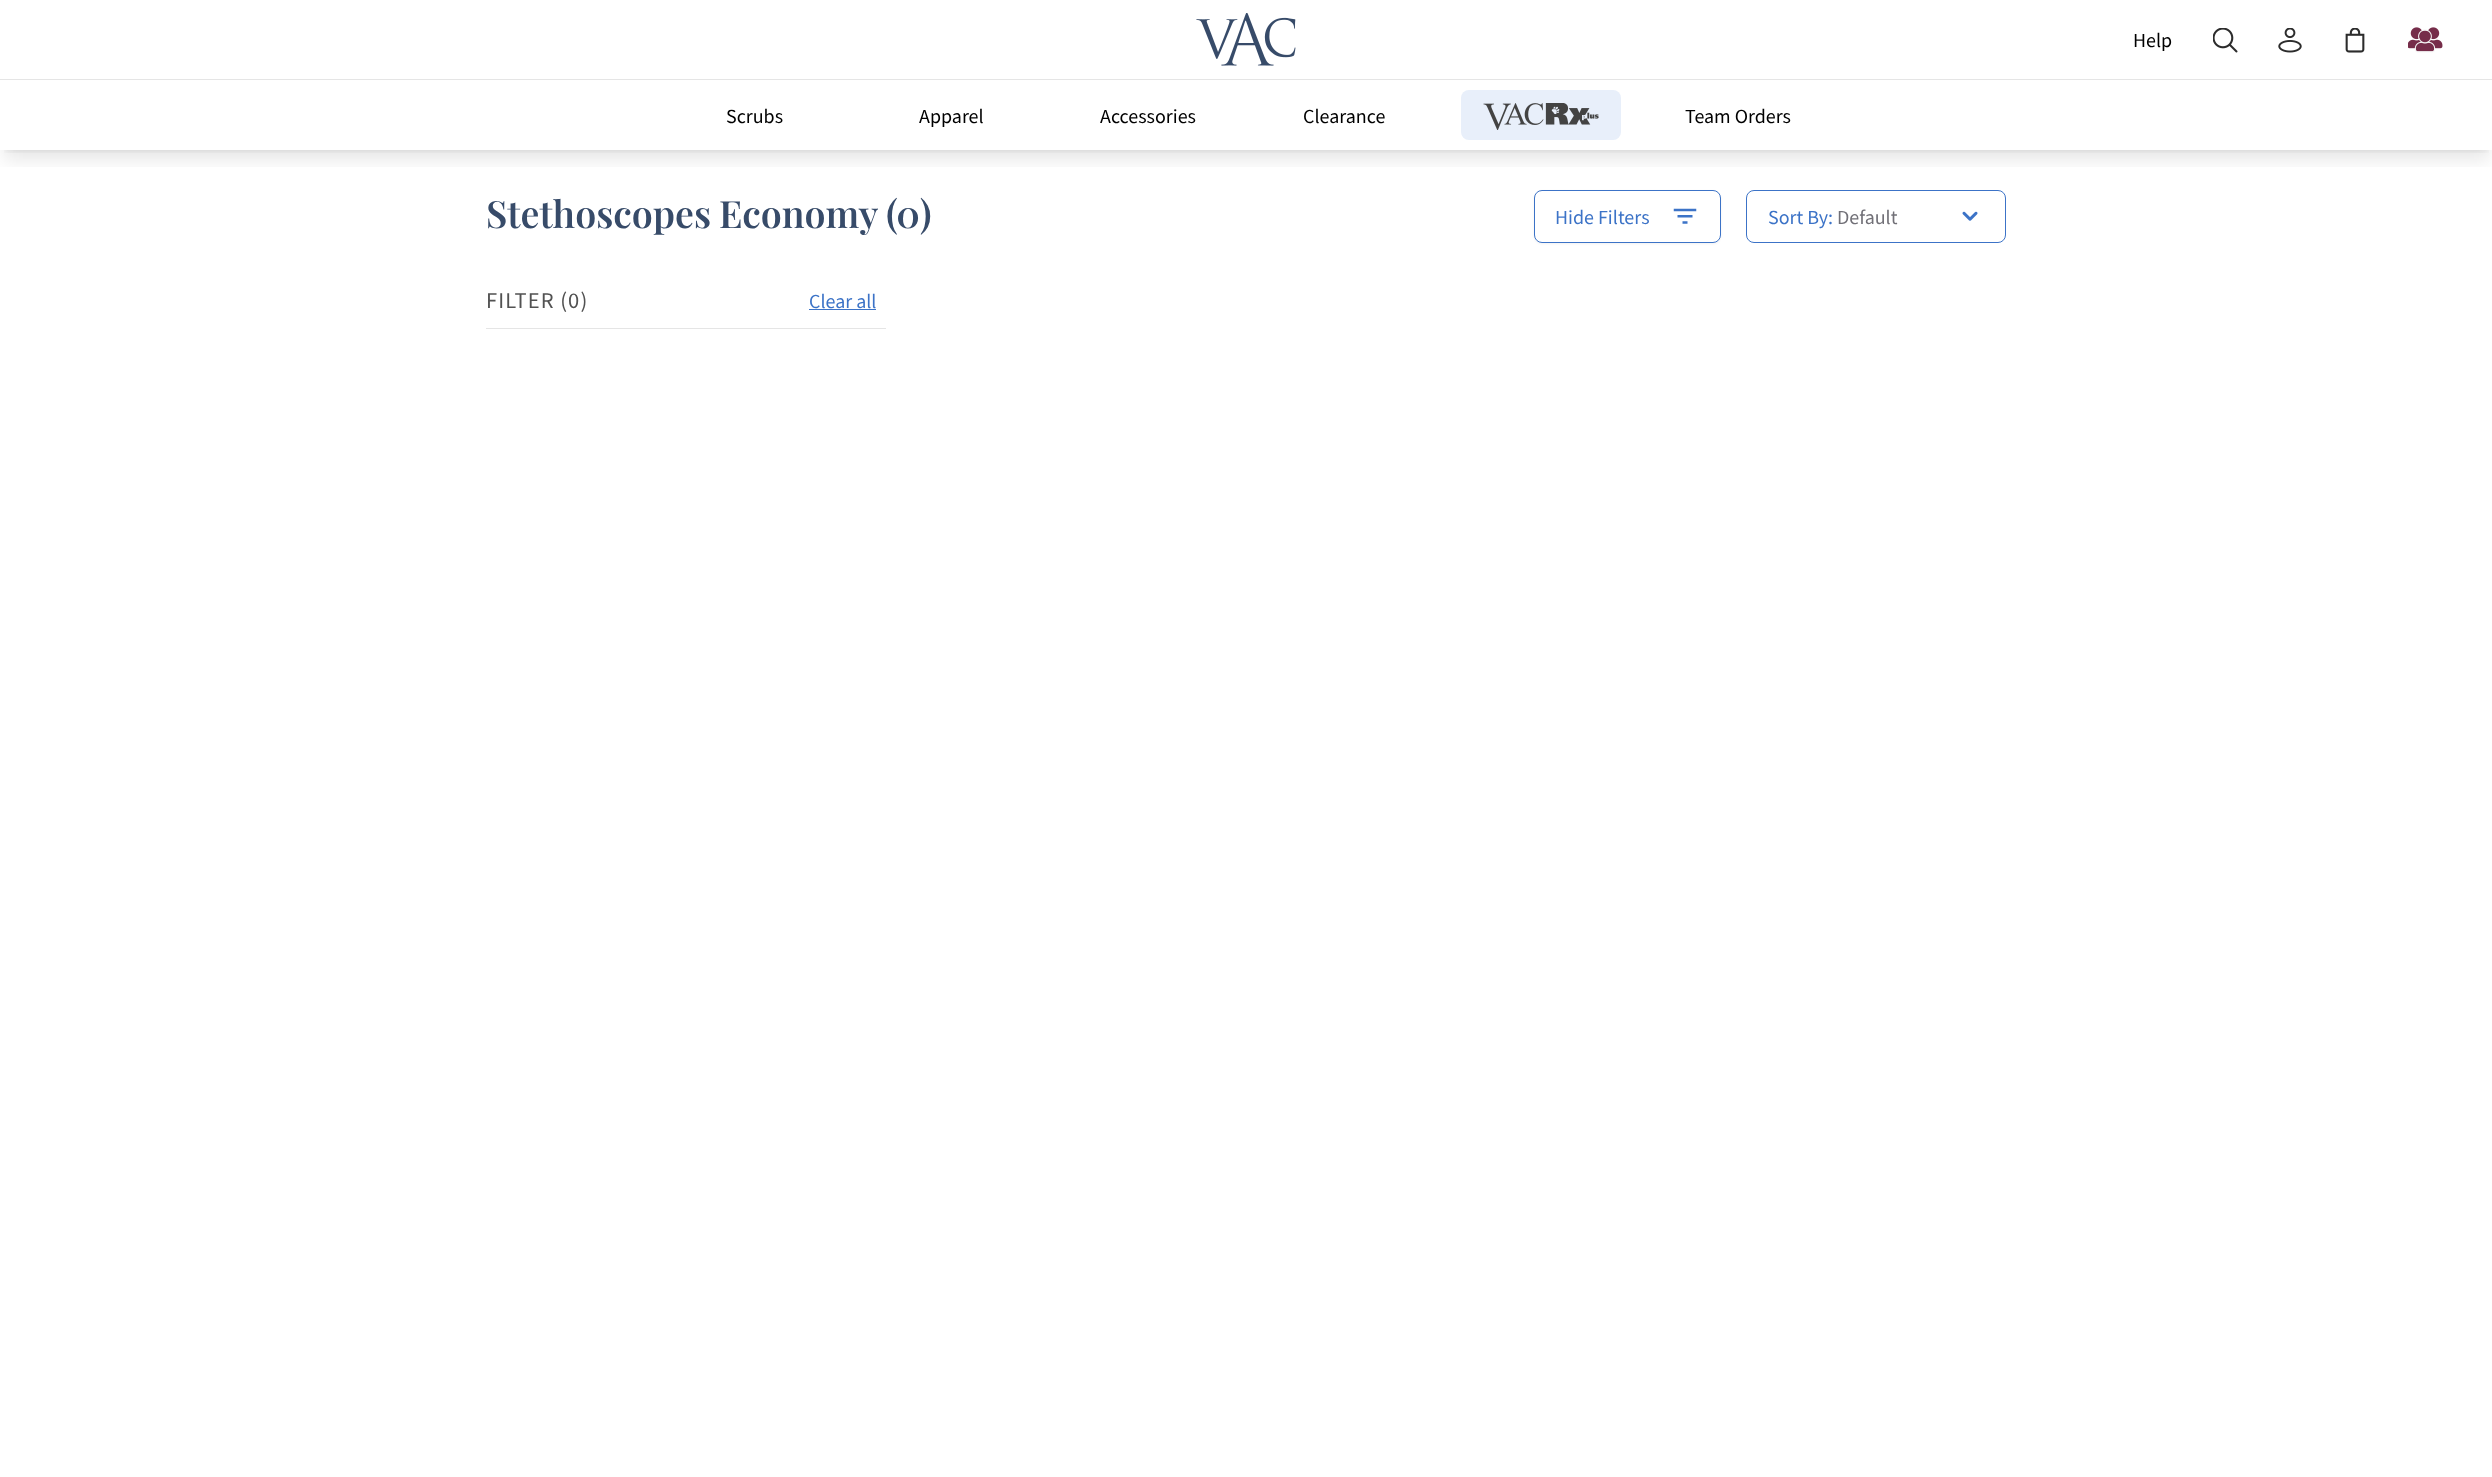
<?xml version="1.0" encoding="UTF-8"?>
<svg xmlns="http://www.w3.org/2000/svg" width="2492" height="1477">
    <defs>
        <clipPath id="clip1"><rect x="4" y="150" width="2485" height="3"/></clipPath>
        <filter id="blur1" x="-50%" y="-200%" width="200%" height="500%"><feGaussianBlur stdDeviation="4"/></filter>
        <clipPath id="clip2"><rect x="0" y="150" width="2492" height="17"/></clipPath>
        <filter id="blur2" x="-50%" y="-200%" width="200%" height="500%"><feGaussianBlur stdDeviation="9.5"/></filter>
        <filter id="blur3" x="-50%" y="-200%" width="200%" height="500%"><feGaussianBlur stdDeviation="1"/></filter>
    </defs>
    <rect width="100%" height="100%" fill="#FFFFFF"/>
    <g clip-path="url(#clip1)">
        <rect x="5" y="10" width="2483" height="140" fill="#000000" fill-opacity="0.1" filter="url(#blur1)"/>
    </g>
    <g clip-path="url(#clip2)">
        <rect x="4" y="16" width="2485" height="143" fill="#000000" fill-opacity="0.1" filter="url(#blur2)"/>
    </g>
    <rect x="0" y="79" width="2492" height="1" fill="#E5E5E5"/>
    <image x="1196" y="13" width="100" height="53" href="img_01.png"/>
    <text x="2133" y="47" font-family="Source Sans Pro" font-size="20" fill="#000000">Help</text>
    <image x="2213" y="28" width="25" height="25" href="img_02.png"/>
    <image x="2278" y="28" width="24" height="25" href="img_03.png"/>
    <image x="2345" y="28" width="20" height="25" href="img_04.png"/>
    <image x="2408" y="27" width="35" height="26" href="img_05.png"/>
    <text x="726" y="123" font-family="Source Sans Pro" font-size="20" fill="#000000">Scrubs</text>
    <text x="919" y="123" font-family="Source Sans Pro" font-size="20" fill="#000000">Apparel</text>
    <text x="1100" y="123" font-family="Source Sans Pro" font-size="20" fill="#000000">Accessories</text>
    <text x="1303" y="123" font-family="Source Sans Pro" font-size="20" fill="#000000">Clearance</text>
    <rect x="1461" y="90" width="160" height="50" rx="8" fill="#E8EFFA"/>
    <image x="1483" y="103" width="116" height="27" href="img_06.png"/>
    <text x="1685" y="123" font-family="Source Sans Pro" font-size="20" fill="#000000">Team Orders</text>
    <text x="486" y="228" word-spacing="-1" font-family="Playfair Display" font-size="37.5" font-weight="600" fill="#374B69">Stethoscopes Economy</text>
    <text x="886" y="228" font-family="Playfair Display" font-size="37.5" font-weight="600" fill="#374B69">(0</text>
    <text x="920" y="228" font-family="Playfair Display" font-size="37.5" font-weight="600" fill="#374B69">)</text>
    <rect x="1534" y="191" width="187" height="53" rx="8" fill="#000000" fill-opacity="0.05" filter="url(#blur3)"/>
    <rect x="1534.5" y="190.5" width="186" height="52" rx="7.5" fill="#FFFFFF" stroke="#3C73C7"/>
    <text x="1555" y="224" font-family="Source Sans Pro" font-size="20" fill="#3C73C7">Hide Filters</text>
    <image x="1673" y="208" width="24" height="16" href="img_07.png"/>
    <rect x="1746.5" y="190.5" width="259" height="52" rx="7.5" fill="none" stroke="#3C73C7"/>
    <text x="1768" y="224" font-family="Source Sans Pro" font-size="20" fill="#3C73C7">Sort By:</text>
    <text x="1837" y="224" font-family="Source Sans Pro" font-size="20" fill="#717077">Default</text>
    <image x="1962" y="211" width="16" height="10" href="img_08.png"/>
    <text x="486" y="308" font-family="Source Sans Pro" font-size="22.5" letter-spacing="1.1" fill="#525252">FILTER (0)</text>
    <text x="809" y="308" font-family="Source Sans Pro" font-size="20" fill="#3C73C7">Clear all</text>
    <rect x="809" y="309" width="67" height="1" fill="#3C73C7"/>
    <rect x="486" y="328" width="400" height="1" fill="#E5E5E5"/>
</svg>
